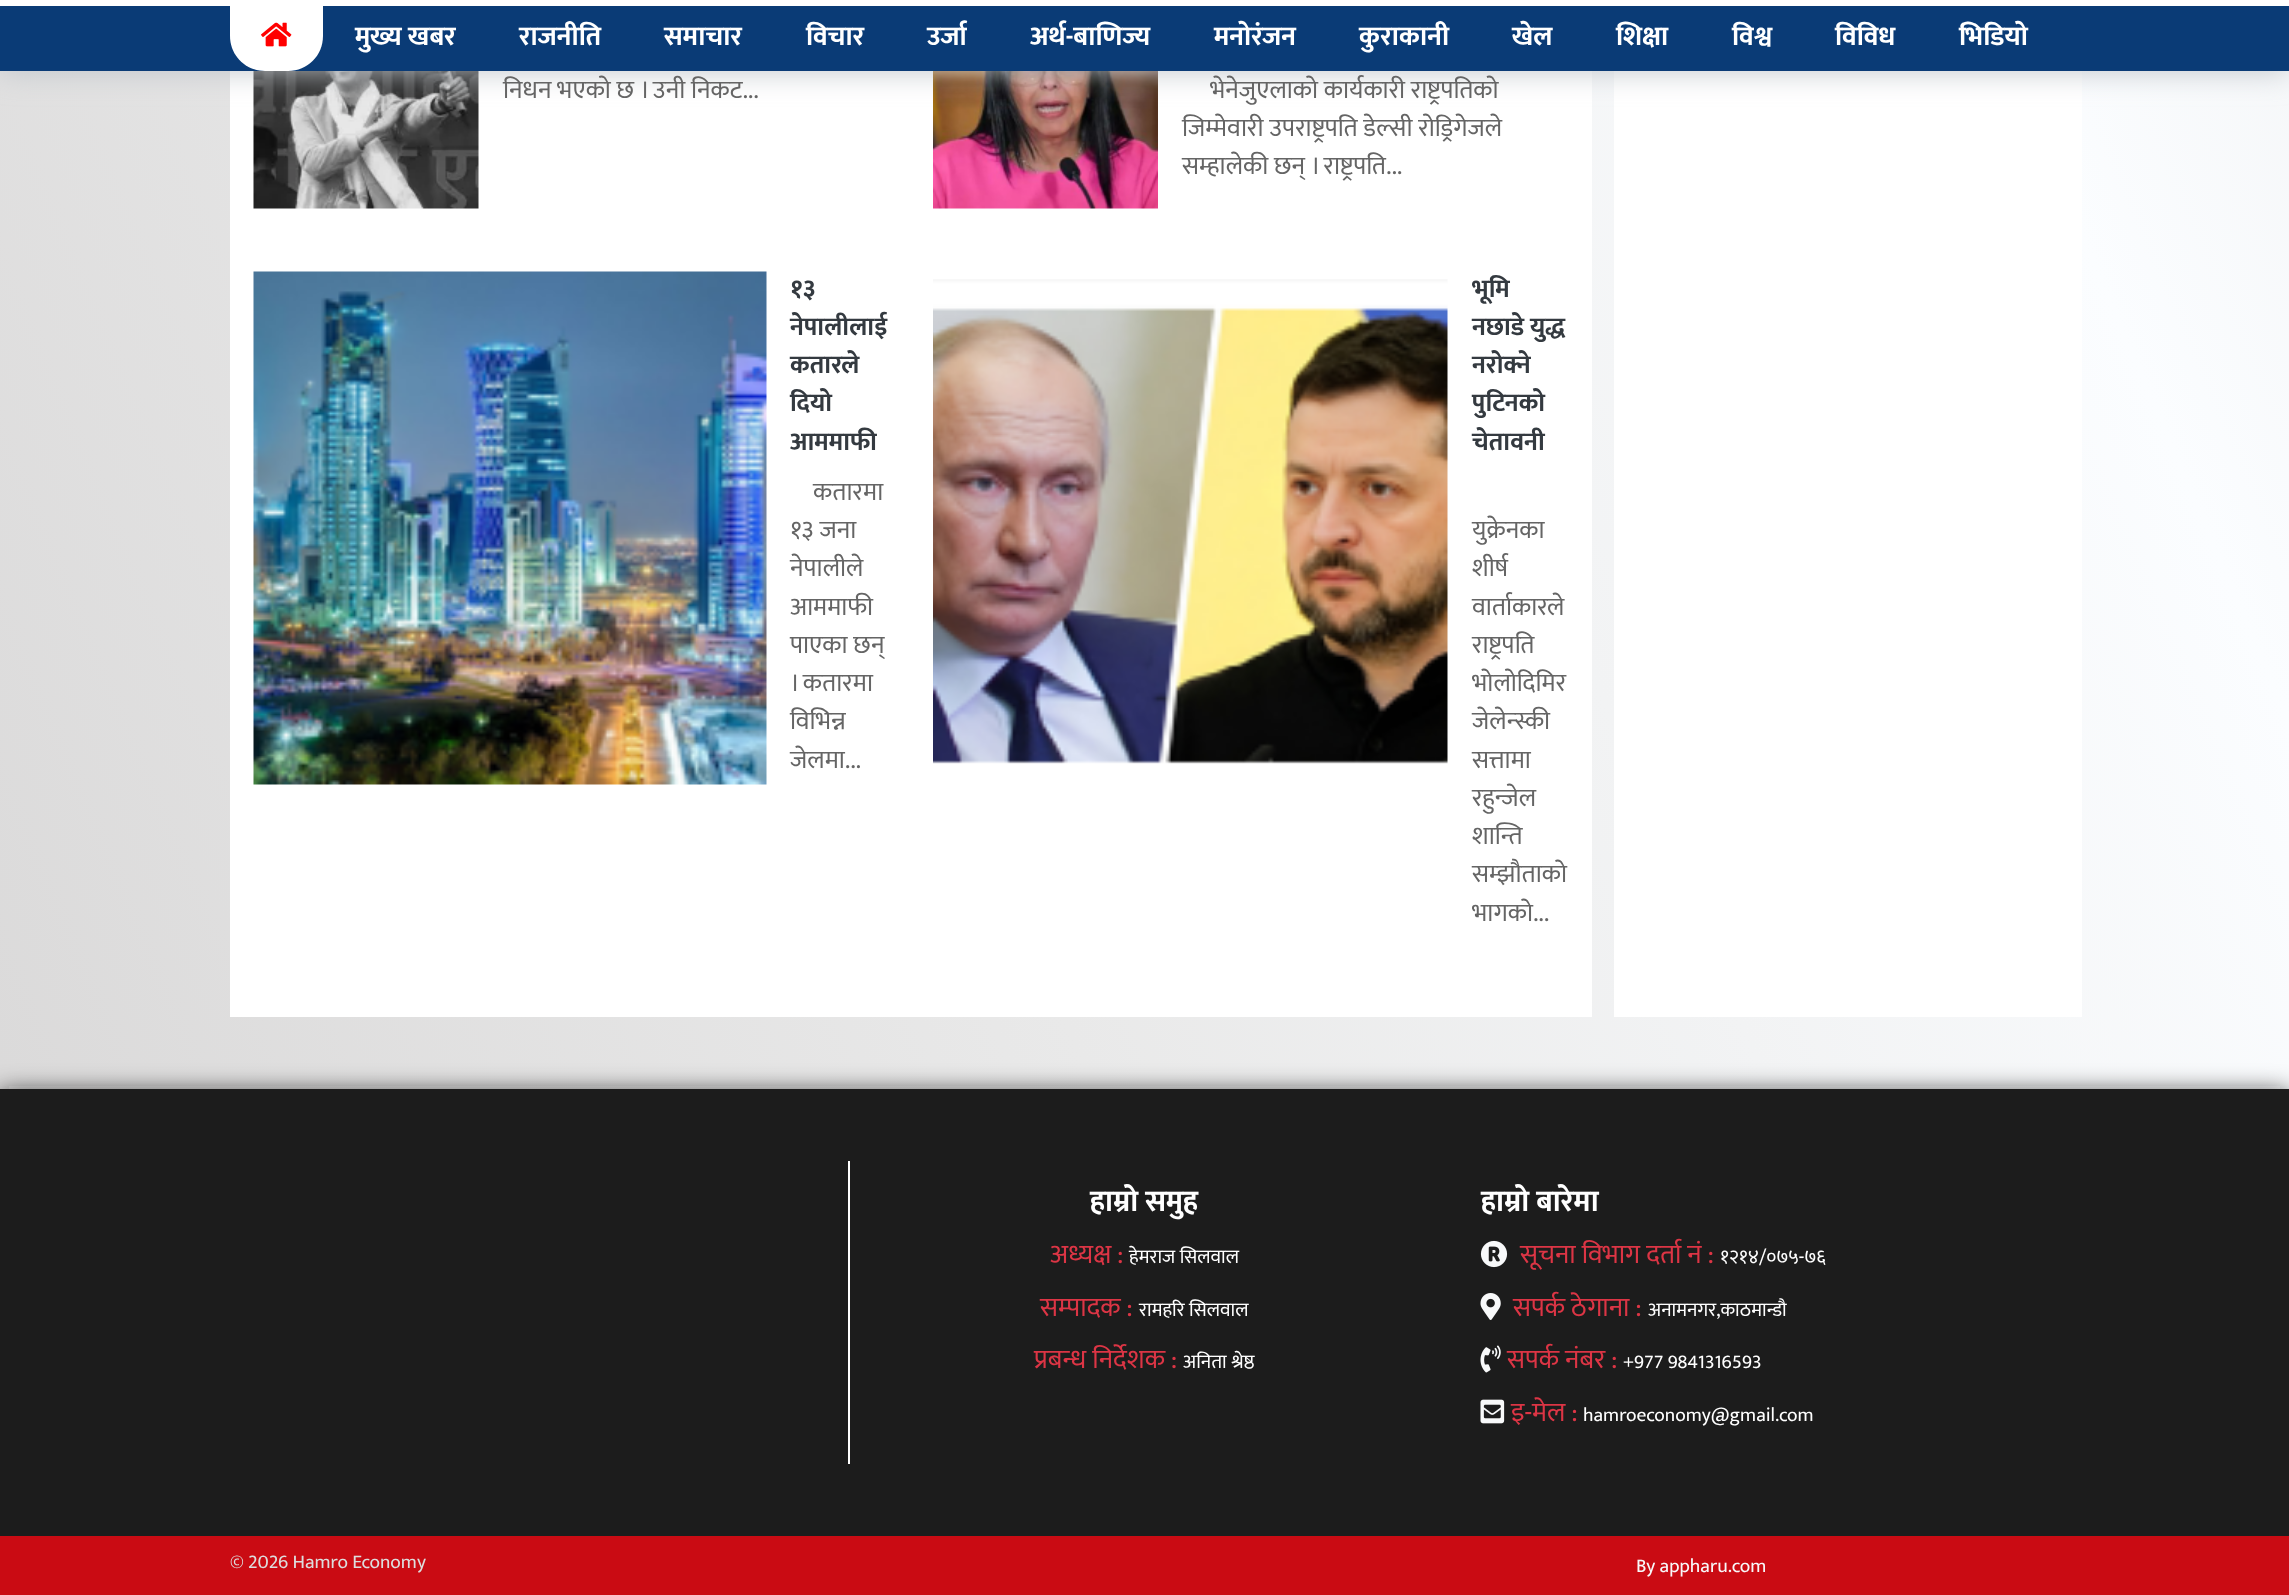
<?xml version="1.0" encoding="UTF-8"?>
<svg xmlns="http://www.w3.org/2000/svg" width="2289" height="1595">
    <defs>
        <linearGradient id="g1" gradientUnits="userSpaceOnUse" x1="-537" y1="330" x2="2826" y2="-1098"><stop offset="0" stop-color="#D8D7D7"/><stop offset="0.33" stop-color="#E9E9E9"/><stop offset="0.67" stop-color="#FBFDFF"/><stop offset="1" stop-color="#E4E4E4"/></linearGradient>
        <filter id="blur1" x="-50%" y="-200%" width="200%" height="500%"><feGaussianBlur stdDeviation="15"/></filter>
        <filter id="blur2" x="-50%" y="-200%" width="200%" height="500%"><feGaussianBlur stdDeviation="13.5"/></filter>
    </defs>
    <rect width="100%" height="100%" fill="#FFFFFF"/>
    <rect x="0" y="71" width="2289" height="1018" fill="url(#g1)"/>
    <rect x="230" y="71" width="1362" height="946" fill="#FFFFFF"/>
    <image x="253" y="71" width="226" height="138" href="img_02.png"/>
    <image x="933" y="71" width="225" height="138" href="img_03.png"/>
    <rect x="1614" y="71" width="468" height="946" fill="#FFFFFF"/>
    <rect x="0" y="0" width="2289" height="71" fill="#BFC5CB" filter="url(#blur1)"/>
    <rect x="0" y="6" width="2289" height="65" fill="#0A3B76"/>
    <rect x="0" y="0" width="2289" height="6" fill="#FFFFFF"/>
    <path d="M 230 6 H 323 V 36 C 323 55.5 307.5 71 288 71 H 265 C 245.5 71 230 55.5 230 36 Z" fill="#FFFFFF"/>
    <image x="261" y="22" width="31" height="25" href="img_01.png"/>
    <text x="355" y="45" font-family="Mukta" font-size="27" font-weight="700" fill="#FFFFFF">मुख्य खबर</text>
    <text x="519" y="45" font-family="Mukta" font-size="27" font-weight="700" fill="#FFFFFF">राजनीति</text>
    <text x="664" y="45" font-family="Mukta" font-size="27" font-weight="700" fill="#FFFFFF">समाचार</text>
    <text x="806" y="45" font-family="Mukta" font-size="27" font-weight="700" fill="#FFFFFF">विचार</text>
    <text x="927" y="45" font-family="Mukta" font-size="27" font-weight="700" fill="#FFFFFF">उर्जा</text>
    <text x="1030" y="45" font-family="Mukta" font-size="27" font-weight="700" fill="#FFFFFF">अर्थ-बाणिज्य</text>
    <text x="1214" y="45" font-family="Mukta" font-size="27" font-weight="700" fill="#FFFFFF">मनोरंजन</text>
    <text x="1359" y="45" font-family="Mukta" font-size="27" font-weight="700" fill="#FFFFFF">कुराकानी</text>
    <text x="1512" y="45" font-family="Mukta" font-size="27" font-weight="700" fill="#FFFFFF">खेल</text>
    <text x="1616" y="45" font-family="Mukta" font-size="27" font-weight="700" fill="#FFFFFF">शिक्षा</text>
    <text x="1732" y="45" font-family="Mukta" font-size="27" font-weight="700" fill="#FFFFFF">विश्व</text>
    <text x="1835" y="45" font-family="Mukta" font-size="27" font-weight="700" fill="#FFFFFF">विविध</text>
    <text x="1959" y="45" font-family="Mukta" font-size="27" font-weight="700" fill="#FFFFFF">भिडियो</text>
    <text x="503" y="98" font-family="Mukta" font-size="25.5" fill="#656565">निधन भएको छ । उनी निकट...</text>
    <text x="1210" y="98" font-family="Mukta" font-size="25.5" fill="#656565">भेनेजुएलाको कार्यकारी राष्ट्रपतिको</text>
    <text font-family="Mukta" font-size="25.5" fill="#656565">
        <tspan x="1182" y="136">जिम्मेवारी उपराष्ट्रपति डेल्सी रोड्रिगेजले</tspan>
        <tspan x="1182" y="174">सम्हालेकी छन् । राष्ट्रपति...</tspan>
    </text>
    <image x="253" y="271" width="514" height="514" href="img_04.png"/>
    <text font-family="Mukta" font-size="25.5" font-weight="700" fill="#343A40">
        <tspan x="790" y="297">१३</tspan>
        <tspan x="790" y="335">नेपालीलाई</tspan>
        <tspan x="790" y="373">कतारले</tspan>
        <tspan x="790" y="411">दियो</tspan>
        <tspan x="790" y="450">आममाफी</tspan>
    </text>
    <text x="813" y="500" font-family="Mukta" font-size="25.5" fill="#656565">कतारमा</text>
    <text font-family="Mukta" font-size="25.5" fill="#656565">
        <tspan x="790" y="538">१३ जना</tspan>
        <tspan x="790" y="576">नेपालीले</tspan>
        <tspan x="790" y="615">आममाफी</tspan>
        <tspan x="790" y="653">पाएका छन्</tspan>
        <tspan x="790" y="691">। कतारमा</tspan>
        <tspan x="790" y="729">विभिन्न</tspan>
        <tspan x="790" y="768">जेलमा...</tspan>
    </text>
    <image x="933" y="279" width="515" height="485" href="img_05.png"/>
    <text font-family="Mukta" font-size="25.5" font-weight="700" fill="#343A40">
        <tspan x="1472" y="297">भूमि</tspan>
        <tspan x="1472" y="335">नछाडे युद्ध</tspan>
        <tspan x="1472" y="373">नरोक्ने</tspan>
        <tspan x="1472" y="411">पुटिनको</tspan>
        <tspan x="1472" y="450">चेतावनी</tspan>
    </text>
    <text font-family="Mukta" font-size="25.5" fill="#656565">
        <tspan x="1472" y="538">युक्रेनका</tspan>
        <tspan x="1472" y="576">शीर्ष</tspan>
        <tspan x="1472" y="615">वार्ताकारले</tspan>
        <tspan x="1472" y="653">राष्ट्रपति</tspan>
        <tspan x="1472" y="691">भोलोदिमिर</tspan>
        <tspan x="1472" y="729">जेलेन्स्की</tspan>
        <tspan x="1472" y="768">सत्तामा</tspan>
        <tspan x="1472" y="806">रहुन्जेल</tspan>
        <tspan x="1472" y="844">शान्ति</tspan>
        <tspan x="1472" y="882">सम्झौताको</tspan>
        <tspan x="1472" y="921">भागको...</tspan>
    </text>
    <rect x="0" y="1095" width="2289" height="447" fill="#161616" filter="url(#blur2)"/>
    <rect x="0" y="1089" width="2289" height="447" fill="#1C1C1C"/>
    <rect x="848" y="1161" width="2" height="303" fill="#FFFFFF"/>
    <text x="1090" y="1211" font-family="Mukta" font-size="30" font-weight="700" fill="#FFFFFF">हाम्रो समुह</text>
    <text x="1050" y="1263" font-family="Mukta" font-size="27" fill="#DC3545">अध्यक्ष :</text>
    <text x="1129" y="1263" font-family="Mukta" font-size="19.5" fill="#FFFFFF">हेमराज सिलवाल</text>
    <text x="1040" y="1316" font-family="Mukta" font-size="27" fill="#DC3545">सम्पादक :</text>
    <text x="1139" y="1316" font-family="Mukta" font-size="19.5" fill="#FFFFFF">रामहरि सिलवाल</text>
    <text x="1034" y="1368" font-family="Mukta" font-size="27" fill="#DC3545">प्रबन्ध निर्देशक :</text>
    <text x="1183" y="1368" font-family="Mukta" font-size="19.5" fill="#FFFFFF">अनिता श्रेष्ठ</text>
    <text x="1481" y="1211" font-family="Mukta" font-size="30" font-weight="700" fill="#FFFFFF">हाम्रो बारेमा</text>
    <image x="1480" y="1240" width="28" height="28" href="img_06.png"/>
    <text x="1520" y="1263" font-family="Mukta" font-size="27" fill="#DC3545">सूचना विभाग दर्ता नं :</text>
    <text x="1720" y="1263" font-family="Mukta" font-size="19.5" fill="#FFFFFF">१२१४/०७५-७६</text>
    <image x="1480" y="1293" width="21" height="27" href="img_07.png"/>
    <text x="1513" y="1316" font-family="Mukta" font-size="27" fill="#DC3545">सपर्क ठेगाना :</text>
    <text x="1648" y="1316" font-family="Mukta" font-size="19.5" fill="#FFFFFF">अनामनगर,काठमान्डौ</text>
    <image x="1480" y="1345" width="21" height="28" href="img_08.png"/>
    <text x="1507" y="1368" font-family="Mukta" font-size="27" fill="#DC3545">सपर्क नंबर :</text>
    <text x="1623" y="1368" font-family="Mukta" font-size="19.5" fill="#FFFFFF">+977 9841316593</text>
    <image x="1480" y="1399" width="25" height="25" href="img_09.png"/>
    <text x="1511" y="1421" font-family="Mukta" font-size="27" fill="#DC3545">इ-मेल :</text>
    <text x="1583" y="1421" font-family="Mukta" font-size="19.5" fill="#FFFFFF">hamroeconomy@gmail.com</text>
    <rect x="0" y="1536" width="2289" height="59" fill="#CA0B13"/>
    <text x="230" y="1568" font-family="Mukta" font-size="19.5" fill="#DDDDDD">© 2026 Hamro Economy</text>
    <text x="1636" y="1572" font-family="Mukta" font-size="19.5" fill="#F8F9FA">By appharu.com</text>
</svg>
